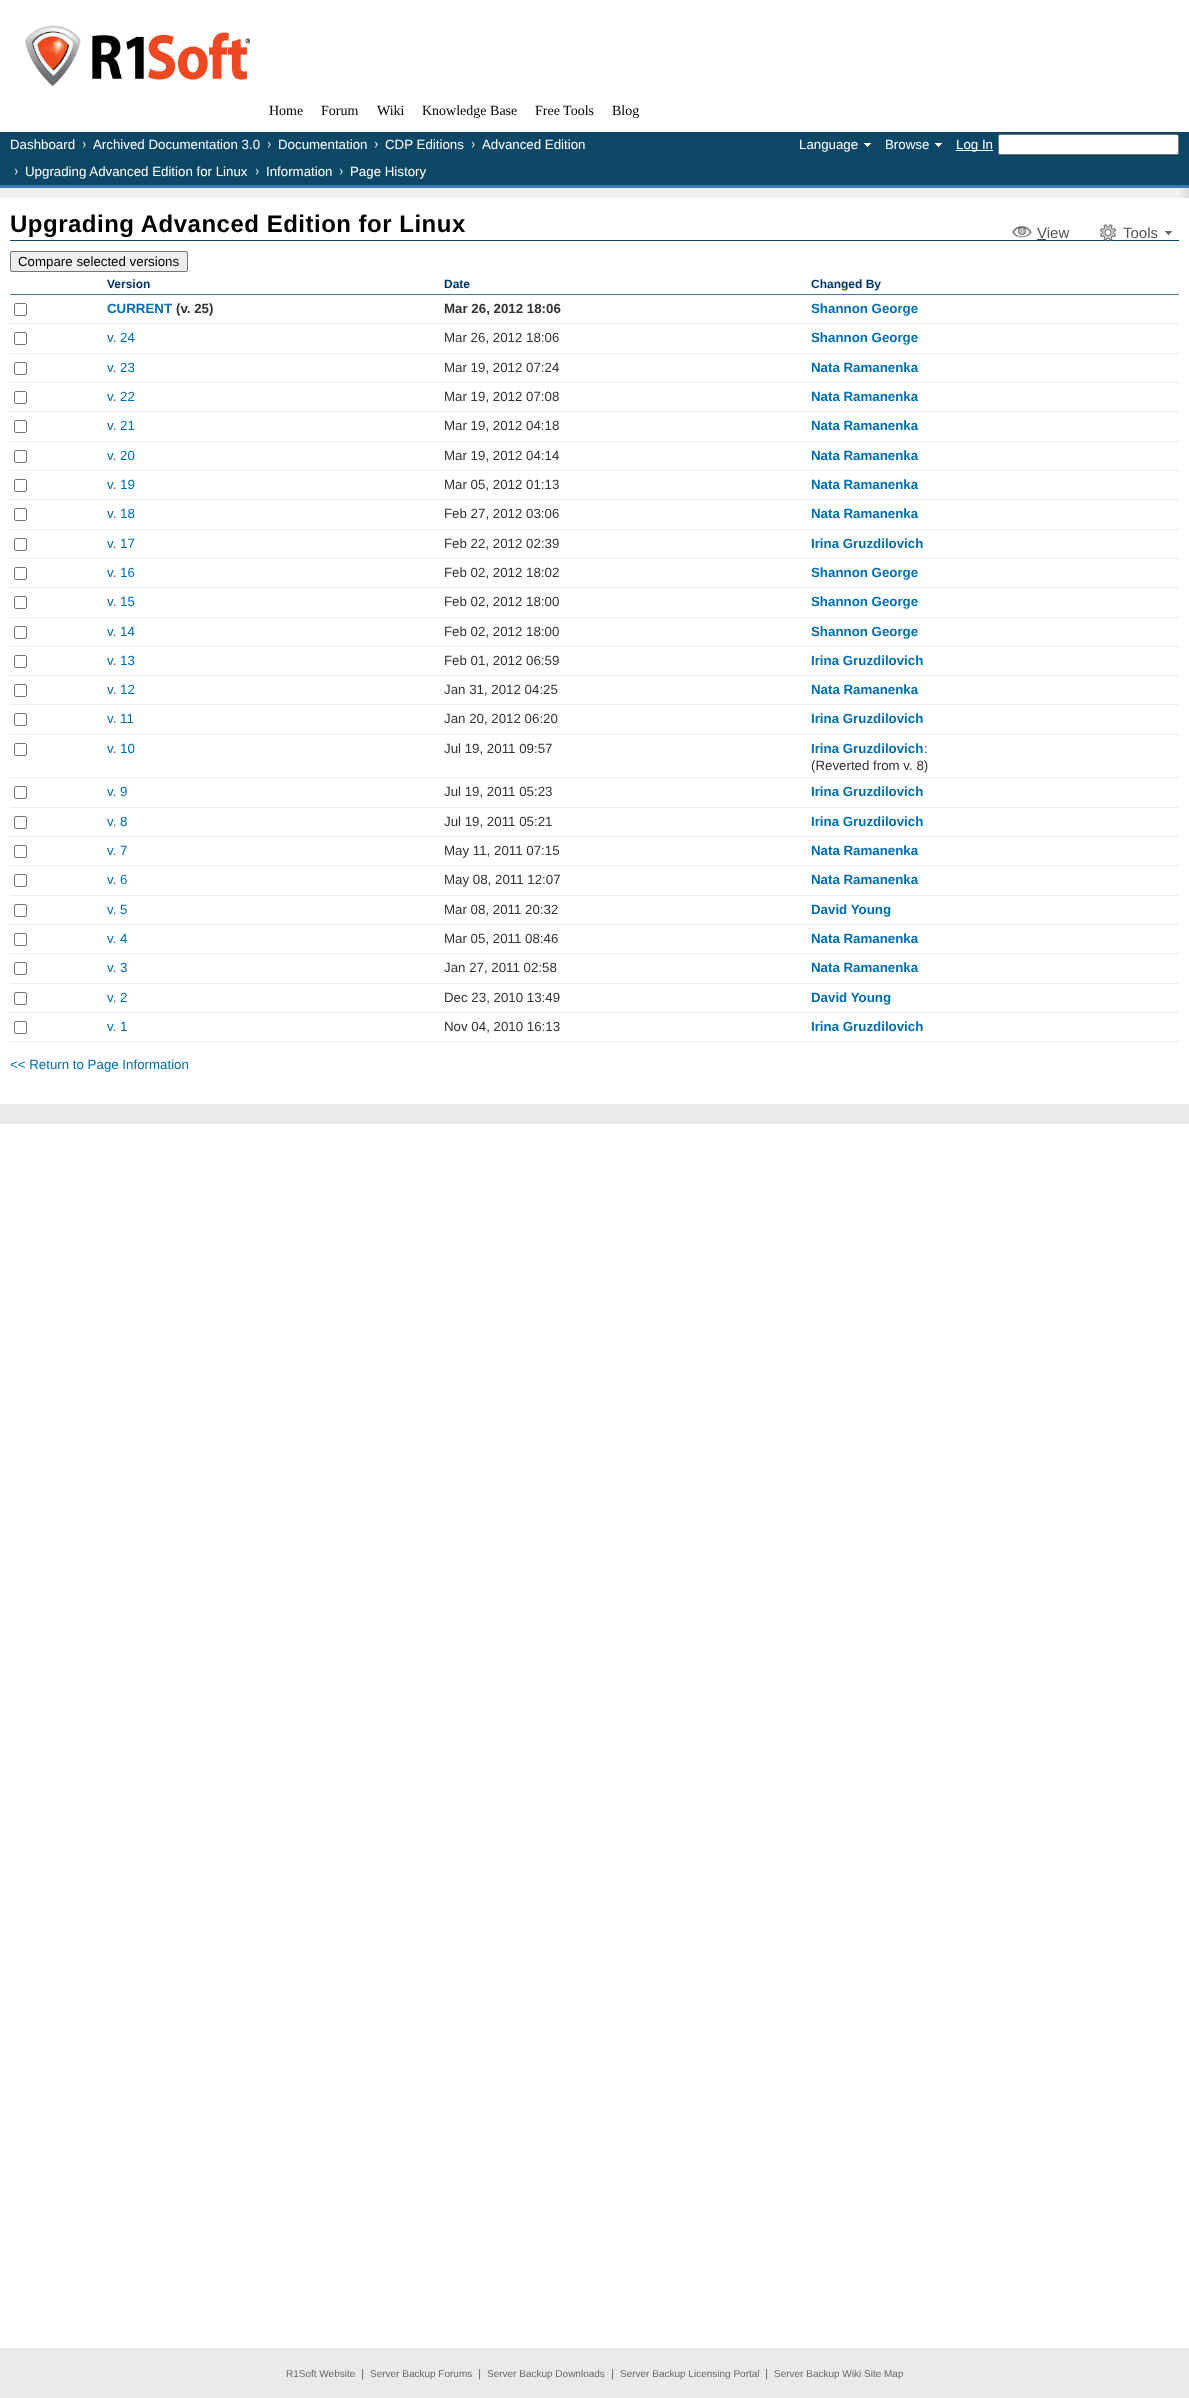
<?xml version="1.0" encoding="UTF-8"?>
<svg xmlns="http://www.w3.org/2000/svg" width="1189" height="2398">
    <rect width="100%" height="100%" fill="#FFFFFF"/>
    <image x="25" y="25" width="225" height="62" href="img_01.png"/>
    <text x="269" y="115" font-family="Liberation Serif" font-size="14" fill="#000000">Home</text>
    <text x="321" y="115" font-family="Liberation Serif" font-size="14" fill="#000000">Forum</text>
    <text x="377" y="115" font-family="Liberation Serif" font-size="14" fill="#000000">Wiki</text>
    <text x="422" y="115" font-family="Liberation Serif" font-size="14" fill="#000000">Knowledge Base</text>
    <text x="535" y="115" font-family="Liberation Serif" font-size="14" fill="#000000">Free Tools</text>
    <text x="612" y="115" font-family="Liberation Serif" font-size="14" fill="#000000">Blog</text>
    <rect x="0" y="1104" width="1189" height="20" fill="#E9EAEB"/>
    <rect x="0" y="132" width="1189" height="53" fill="#0C4766"/>
    <rect x="0" y="185" width="1189" height="3" fill="#3C78B5"/>
    <text x="10" y="149" font-family="Liberation Sans" font-size="13.3" fill="#FFFFFF">Dashboard</text>
    <image x="82" y="141" width="4" height="7" href="img_02.png"/>
    <text x="93" y="149" font-family="Liberation Sans" font-size="13.3" fill="#FFFFFF">Archived Documentation 3.0</text>
    <image x="267" y="141" width="4" height="7" href="img_02.png"/>
    <text x="278" y="149" font-family="Liberation Sans" font-size="13.3" fill="#FFFFFF">Documentation</text>
    <image x="374" y="141" width="4" height="7" href="img_02.png"/>
    <text x="385" y="149" font-family="Liberation Sans" font-size="13.3" fill="#FFFFFF">CDP Editions</text>
    <image x="471" y="141" width="4" height="7" href="img_02.png"/>
    <text x="482" y="149" font-family="Liberation Sans" font-size="13.3" fill="#FFFFFF">Advanced Edition</text>
    <image x="14" y="168" width="4" height="7" href="img_02.png"/>
    <text x="25" y="176" font-family="Liberation Sans" font-size="13.3" fill="#FFFFFF">Upgrading Advanced Edition for Linux</text>
    <image x="255" y="168" width="4" height="7" href="img_02.png"/>
    <text x="266" y="176" font-family="Liberation Sans" font-size="13.3" fill="#FFFFFF">Information</text>
    <image x="339" y="168" width="4" height="7" href="img_02.png"/>
    <text x="350" y="176" font-family="Liberation Sans" font-size="13.3" fill="#FFFFFF">Page History</text>
    <image x="864" y="143" width="7" height="4" href="img_03.png"/>
    <text x="799" y="149" font-family="Liberation Sans" font-size="13.3" fill="#FFFFFF">Language</text>
    <image x="935" y="143" width="7" height="4" href="img_03.png"/>
    <text x="885" y="149" font-family="Liberation Sans" font-size="13.3" fill="#FFFFFF">Browse</text>
    <rect x="956" y="150" width="37" height="1" fill="#FFFFFF"/>
    <text x="956" y="149" font-family="Liberation Sans" font-size="13.3" fill="#FFFFFF">Log In</text>
    <rect x="998.5" y="134.5" width="180" height="20" rx="1.5" fill="#FFFFFF" stroke="#767676"/>
    <rect x="0" y="188" width="1180" height="10" fill="#F0F0F0"/>
    <image x="1180" y="188" width="9" height="10" href="img_04.png"/>
    <rect x="10" y="240" width="1169" height="1" fill="#0C4766"/>
    <text x="10" y="232" font-family="Liberation Sans" font-size="24" font-weight="700" letter-spacing="0.5" fill="#000000">Upgrading Advanced Edition for Linux</text>
    <image x="1012" y="226" width="20" height="12" href="img_05.png"/>
    <text x="1037" y="238" font-family="Liberation Sans" font-size="15" fill="#535353">View</text>
    <rect x="1037" y="239" width="9" height="1" fill="#535353"/>
    <image x="1165" y="231" width="7" height="4" href="img_06.png"/>
    <image x="1100" y="224" width="16" height="17" href="img_07.png"/>
    <text x="1123" y="238" font-family="Liberation Sans" font-size="15" fill="#535353">Tools</text>
    <rect x="10.5" y="251.5" width="177" height="20" rx="1.5" fill="#EFEFEF" stroke="#767676"/>
    <text x="18" y="266" font-family="Liberation Sans" font-size="13.3" fill="#000000">Compare selected versions</text>
    <text x="107" y="288" font-family="Liberation Sans" font-size="12" font-weight="700" fill="#003366">Version</text>
    <text x="444" y="288" font-family="Liberation Sans" font-size="12" font-weight="700" fill="#003366">Date</text>
    <text x="811" y="288" font-family="Liberation Sans" font-size="12" font-weight="700" fill="#003366">Changed By</text>
    <rect x="10" y="294" width="1169" height="1" fill="#3C78B5"/>
    <rect x="10" y="323" width="1169" height="1" fill="#EEEEEE"/>
    <rect x="14.5" y="303.5" width="12" height="12" rx="1.5" fill="none" stroke="#767676"/>
    <text x="107" y="313" font-family="Liberation Sans" font-size="13.3" font-weight="700" fill="#006DAF">CURRENT</text>
    <text x="176" y="313" font-family="Liberation Sans" font-size="13.3" font-weight="700" fill="#333333">(v. 25)</text>
    <text x="444" y="313" font-family="Liberation Sans" font-size="13.3" font-weight="700" fill="#333333">Mar 26, 2012 18:06</text>
    <text x="811" y="313" font-family="Liberation Sans" font-size="13.3" font-weight="700" fill="#006DAF">Shannon George</text>
    <rect x="10" y="353" width="1169" height="1" fill="#EEEEEE"/>
    <rect x="14.5" y="332.5" width="12" height="12" rx="1.5" fill="none" stroke="#767676"/>
    <text x="107" y="342" font-family="Liberation Sans" font-size="13.3" fill="#006DAF">v. 24</text>
    <text x="444" y="342" font-family="Liberation Sans" font-size="13.3" fill="#333333">Mar 26, 2012 18:06</text>
    <text x="811" y="342" font-family="Liberation Sans" font-size="13.3" font-weight="700" fill="#006DAF">Shannon George</text>
    <rect x="10" y="382" width="1169" height="1" fill="#EEEEEE"/>
    <rect x="14.5" y="362.5" width="12" height="12" rx="1.5" fill="none" stroke="#767676"/>
    <text x="107" y="372" font-family="Liberation Sans" font-size="13.3" fill="#006DAF">v. 23</text>
    <text x="444" y="372" font-family="Liberation Sans" font-size="13.3" fill="#333333">Mar 19, 2012 07:24</text>
    <text x="811" y="372" font-family="Liberation Sans" font-size="13.3" font-weight="700" fill="#006DAF">Nata Ramanenka</text>
    <rect x="10" y="411" width="1169" height="1" fill="#EEEEEE"/>
    <rect x="14.5" y="391.5" width="12" height="12" rx="1.5" fill="none" stroke="#767676"/>
    <text x="107" y="401" font-family="Liberation Sans" font-size="13.3" fill="#006DAF">v. 22</text>
    <text x="444" y="401" font-family="Liberation Sans" font-size="13.3" fill="#333333">Mar 19, 2012 07:08</text>
    <text x="811" y="401" font-family="Liberation Sans" font-size="13.3" font-weight="700" fill="#006DAF">Nata Ramanenka</text>
    <rect x="10" y="441" width="1169" height="1" fill="#EEEEEE"/>
    <rect x="14.5" y="420.5" width="12" height="12" rx="1.5" fill="none" stroke="#767676"/>
    <text x="107" y="430" font-family="Liberation Sans" font-size="13.3" fill="#006DAF">v. 21</text>
    <text x="444" y="430" font-family="Liberation Sans" font-size="13.3" fill="#333333">Mar 19, 2012 04:18</text>
    <text x="811" y="430" font-family="Liberation Sans" font-size="13.3" font-weight="700" fill="#006DAF">Nata Ramanenka</text>
    <rect x="10" y="470" width="1169" height="1" fill="#EEEEEE"/>
    <rect x="14.5" y="450.5" width="12" height="12" rx="1.5" fill="none" stroke="#767676"/>
    <text x="107" y="460" font-family="Liberation Sans" font-size="13.3" fill="#006DAF">v. 20</text>
    <text x="444" y="460" font-family="Liberation Sans" font-size="13.3" fill="#333333">Mar 19, 2012 04:14</text>
    <text x="811" y="460" font-family="Liberation Sans" font-size="13.3" font-weight="700" fill="#006DAF">Nata Ramanenka</text>
    <rect x="10" y="499" width="1169" height="1" fill="#EEEEEE"/>
    <rect x="14.5" y="479.5" width="12" height="12" rx="1.5" fill="none" stroke="#767676"/>
    <text x="107" y="489" font-family="Liberation Sans" font-size="13.3" fill="#006DAF">v. 19</text>
    <text x="444" y="489" font-family="Liberation Sans" font-size="13.3" fill="#333333">Mar 05, 2012 01:13</text>
    <text x="811" y="489" font-family="Liberation Sans" font-size="13.3" font-weight="700" fill="#006DAF">Nata Ramanenka</text>
    <rect x="10" y="529" width="1169" height="1" fill="#EEEEEE"/>
    <rect x="14.5" y="508.5" width="12" height="12" rx="1.5" fill="none" stroke="#767676"/>
    <text x="107" y="518" font-family="Liberation Sans" font-size="13.3" fill="#006DAF">v. 18</text>
    <text x="444" y="518" font-family="Liberation Sans" font-size="13.3" fill="#333333">Feb 27, 2012 03:06</text>
    <text x="811" y="518" font-family="Liberation Sans" font-size="13.3" font-weight="700" fill="#006DAF">Nata Ramanenka</text>
    <rect x="10" y="558" width="1169" height="1" fill="#EEEEEE"/>
    <rect x="14.5" y="538.5" width="12" height="12" rx="1.5" fill="none" stroke="#767676"/>
    <text x="107" y="548" font-family="Liberation Sans" font-size="13.3" fill="#006DAF">v. 17</text>
    <text x="444" y="548" font-family="Liberation Sans" font-size="13.3" fill="#333333">Feb 22, 2012 02:39</text>
    <text x="811" y="548" font-family="Liberation Sans" font-size="13.3" font-weight="700" fill="#006DAF">Irina Gruzdilovich</text>
    <rect x="10" y="587" width="1169" height="1" fill="#EEEEEE"/>
    <rect x="14.5" y="567.5" width="12" height="12" rx="1.5" fill="none" stroke="#767676"/>
    <text x="107" y="577" font-family="Liberation Sans" font-size="13.3" fill="#006DAF">v. 16</text>
    <text x="444" y="577" font-family="Liberation Sans" font-size="13.3" fill="#333333">Feb 02, 2012 18:02</text>
    <text x="811" y="577" font-family="Liberation Sans" font-size="13.3" font-weight="700" fill="#006DAF">Shannon George</text>
    <rect x="10" y="617" width="1169" height="1" fill="#EEEEEE"/>
    <rect x="14.5" y="596.5" width="12" height="12" rx="1.5" fill="none" stroke="#767676"/>
    <text x="107" y="606" font-family="Liberation Sans" font-size="13.3" fill="#006DAF">v. 15</text>
    <text x="444" y="606" font-family="Liberation Sans" font-size="13.3" fill="#333333">Feb 02, 2012 18:00</text>
    <text x="811" y="606" font-family="Liberation Sans" font-size="13.3" font-weight="700" fill="#006DAF">Shannon George</text>
    <rect x="10" y="646" width="1169" height="1" fill="#EEEEEE"/>
    <rect x="14.5" y="626.5" width="12" height="12" rx="1.5" fill="none" stroke="#767676"/>
    <text x="107" y="636" font-family="Liberation Sans" font-size="13.3" fill="#006DAF">v. 14</text>
    <text x="444" y="636" font-family="Liberation Sans" font-size="13.3" fill="#333333">Feb 02, 2012 18:00</text>
    <text x="811" y="636" font-family="Liberation Sans" font-size="13.3" font-weight="700" fill="#006DAF">Shannon George</text>
    <rect x="10" y="675" width="1169" height="1" fill="#EEEEEE"/>
    <rect x="14.5" y="655.5" width="12" height="12" rx="1.5" fill="none" stroke="#767676"/>
    <text x="107" y="665" font-family="Liberation Sans" font-size="13.3" fill="#006DAF">v. 13</text>
    <text x="444" y="665" font-family="Liberation Sans" font-size="13.3" fill="#333333">Feb 01, 2012 06:59</text>
    <text x="811" y="665" font-family="Liberation Sans" font-size="13.3" font-weight="700" fill="#006DAF">Irina Gruzdilovich</text>
    <rect x="10" y="704" width="1169" height="1" fill="#EEEEEE"/>
    <rect x="14.5" y="684.5" width="12" height="12" rx="1.5" fill="none" stroke="#767676"/>
    <text x="107" y="694" font-family="Liberation Sans" font-size="13.3" fill="#006DAF">v. 12</text>
    <text x="444" y="694" font-family="Liberation Sans" font-size="13.3" fill="#333333">Jan 31, 2012 04:25</text>
    <text x="811" y="694" font-family="Liberation Sans" font-size="13.3" font-weight="700" fill="#006DAF">Nata Ramanenka</text>
    <rect x="10" y="734" width="1169" height="1" fill="#EEEEEE"/>
    <rect x="14.5" y="713.5" width="12" height="12" rx="1.5" fill="none" stroke="#767676"/>
    <text x="107" y="723" font-family="Liberation Sans" font-size="13.3" fill="#006DAF">v. 11</text>
    <text x="444" y="723" font-family="Liberation Sans" font-size="13.3" fill="#333333">Jan 20, 2012 06:20</text>
    <text x="811" y="723" font-family="Liberation Sans" font-size="13.3" font-weight="700" fill="#006DAF">Irina Gruzdilovich</text>
    <rect x="10" y="777" width="1169" height="1" fill="#EEEEEE"/>
    <rect x="14.5" y="743.5" width="12" height="12" rx="1.5" fill="none" stroke="#767676"/>
    <text x="107" y="753" font-family="Liberation Sans" font-size="13.3" fill="#006DAF">v. 10</text>
    <text x="444" y="753" font-family="Liberation Sans" font-size="13.3" fill="#333333">Jul 19, 2011 09:57</text>
    <text x="811" y="753" font-family="Liberation Sans" font-size="13.3" font-weight="700" fill="#006DAF">Irina Gruzdilovich</text>
    <text x="924" y="753" font-family="Liberation Sans" font-size="13.3" fill="#333333">:</text>
    <text x="811" y="770" font-family="Liberation Sans" font-size="13.3" fill="#333333">(Reverted from v. 8)</text>
    <rect x="10" y="807" width="1169" height="1" fill="#EEEEEE"/>
    <rect x="14.5" y="786.5" width="12" height="12" rx="1.5" fill="none" stroke="#767676"/>
    <text x="107" y="796" font-family="Liberation Sans" font-size="13.3" fill="#006DAF">v. 9</text>
    <text x="444" y="796" font-family="Liberation Sans" font-size="13.3" fill="#333333">Jul 19, 2011 05:23</text>
    <text x="811" y="796" font-family="Liberation Sans" font-size="13.3" font-weight="700" fill="#006DAF">Irina Gruzdilovich</text>
    <rect x="10" y="836" width="1169" height="1" fill="#EEEEEE"/>
    <rect x="14.5" y="816.5" width="12" height="12" rx="1.5" fill="none" stroke="#767676"/>
    <text x="107" y="826" font-family="Liberation Sans" font-size="13.3" fill="#006DAF">v. 8</text>
    <text x="444" y="826" font-family="Liberation Sans" font-size="13.3" fill="#333333">Jul 19, 2011 05:21</text>
    <text x="811" y="826" font-family="Liberation Sans" font-size="13.3" font-weight="700" fill="#006DAF">Irina Gruzdilovich</text>
    <rect x="10" y="865" width="1169" height="1" fill="#EEEEEE"/>
    <rect x="14.5" y="845.5" width="12" height="12" rx="1.5" fill="none" stroke="#767676"/>
    <text x="107" y="855" font-family="Liberation Sans" font-size="13.3" fill="#006DAF">v. 7</text>
    <text x="444" y="855" font-family="Liberation Sans" font-size="13.3" fill="#333333">May 11, 2011 07:15</text>
    <text x="811" y="855" font-family="Liberation Sans" font-size="13.3" font-weight="700" fill="#006DAF">Nata Ramanenka</text>
    <rect x="10" y="895" width="1169" height="1" fill="#EEEEEE"/>
    <rect x="14.5" y="874.5" width="12" height="12" rx="1.5" fill="none" stroke="#767676"/>
    <text x="107" y="884" font-family="Liberation Sans" font-size="13.3" fill="#006DAF">v. 6</text>
    <text x="444" y="884" font-family="Liberation Sans" font-size="13.3" fill="#333333">May 08, 2011 12:07</text>
    <text x="811" y="884" font-family="Liberation Sans" font-size="13.3" font-weight="700" fill="#006DAF">Nata Ramanenka</text>
    <rect x="10" y="924" width="1169" height="1" fill="#EEEEEE"/>
    <rect x="14.5" y="904.5" width="12" height="12" rx="1.5" fill="none" stroke="#767676"/>
    <text x="107" y="914" font-family="Liberation Sans" font-size="13.3" fill="#006DAF">v. 5</text>
    <text x="444" y="914" font-family="Liberation Sans" font-size="13.3" fill="#333333">Mar 08, 2011 20:32</text>
    <text x="811" y="914" font-family="Liberation Sans" font-size="13.3" font-weight="700" fill="#006DAF">David Young</text>
    <rect x="10" y="953" width="1169" height="1" fill="#EEEEEE"/>
    <rect x="14.5" y="933.5" width="12" height="12" rx="1.5" fill="none" stroke="#767676"/>
    <text x="107" y="943" font-family="Liberation Sans" font-size="13.3" fill="#006DAF">v. 4</text>
    <text x="444" y="943" font-family="Liberation Sans" font-size="13.3" fill="#333333">Mar 05, 2011 08:46</text>
    <text x="811" y="943" font-family="Liberation Sans" font-size="13.3" font-weight="700" fill="#006DAF">Nata Ramanenka</text>
    <rect x="10" y="983" width="1169" height="1" fill="#EEEEEE"/>
    <rect x="14.5" y="962.5" width="12" height="12" rx="1.5" fill="none" stroke="#767676"/>
    <text x="107" y="972" font-family="Liberation Sans" font-size="13.3" fill="#006DAF">v. 3</text>
    <text x="444" y="972" font-family="Liberation Sans" font-size="13.3" fill="#333333">Jan 27, 2011 02:58</text>
    <text x="811" y="972" font-family="Liberation Sans" font-size="13.3" font-weight="700" fill="#006DAF">Nata Ramanenka</text>
    <rect x="10" y="1012" width="1169" height="1" fill="#EEEEEE"/>
    <rect x="14.5" y="992.5" width="12" height="12" rx="1.5" fill="none" stroke="#767676"/>
    <text x="107" y="1002" font-family="Liberation Sans" font-size="13.3" fill="#006DAF">v. 2</text>
    <text x="444" y="1002" font-family="Liberation Sans" font-size="13.3" fill="#333333">Dec 23, 2010 13:49</text>
    <text x="811" y="1002" font-family="Liberation Sans" font-size="13.3" font-weight="700" fill="#006DAF">David Young</text>
    <rect x="10" y="1041" width="1169" height="1" fill="#EEEEEE"/>
    <rect x="14.5" y="1021.5" width="12" height="12" rx="1.5" fill="none" stroke="#767676"/>
    <text x="107" y="1031" font-family="Liberation Sans" font-size="13.3" fill="#006DAF">v. 1</text>
    <text x="444" y="1031" font-family="Liberation Sans" font-size="13.3" fill="#333333">Nov 04, 2010 16:13</text>
    <text x="811" y="1031" font-family="Liberation Sans" font-size="13.3" font-weight="700" fill="#006DAF">Irina Gruzdilovich</text>
    <text x="10" y="1069" font-family="Liberation Sans" font-size="13.3" fill="#006DAF">&lt;&lt; Return to Page Information</text>
    <rect x="0" y="2348" width="1189" height="50" fill="#E9EAEB"/>
    <text x="286" y="2377" font-family="Liberation Sans" font-size="10" fill="#666666">R1Soft Website</text>
    <text x="361" y="2377" font-family="Liberation Sans" font-size="11" font-style="italic" fill="#666666">|</text>
    <text x="370" y="2377" font-family="Liberation Sans" font-size="10" fill="#666666">Server Backup Forums</text>
    <text x="478" y="2377" font-family="Liberation Sans" font-size="11" font-style="italic" fill="#666666">|</text>
    <text x="487" y="2377" font-family="Liberation Sans" font-size="10" fill="#666666">Server Backup Downloads</text>
    <text x="611" y="2377" font-family="Liberation Sans" font-size="11" font-style="italic" fill="#666666">|</text>
    <text x="620" y="2377" font-family="Liberation Sans" font-size="10" fill="#666666">Server Backup Licensing Portal</text>
    <text x="765" y="2377" font-family="Liberation Sans" font-size="11" font-style="italic" fill="#666666">|</text>
    <text x="774" y="2377" font-family="Liberation Sans" font-size="10" fill="#666666">Server Backup Wiki Site Map</text>
</svg>
